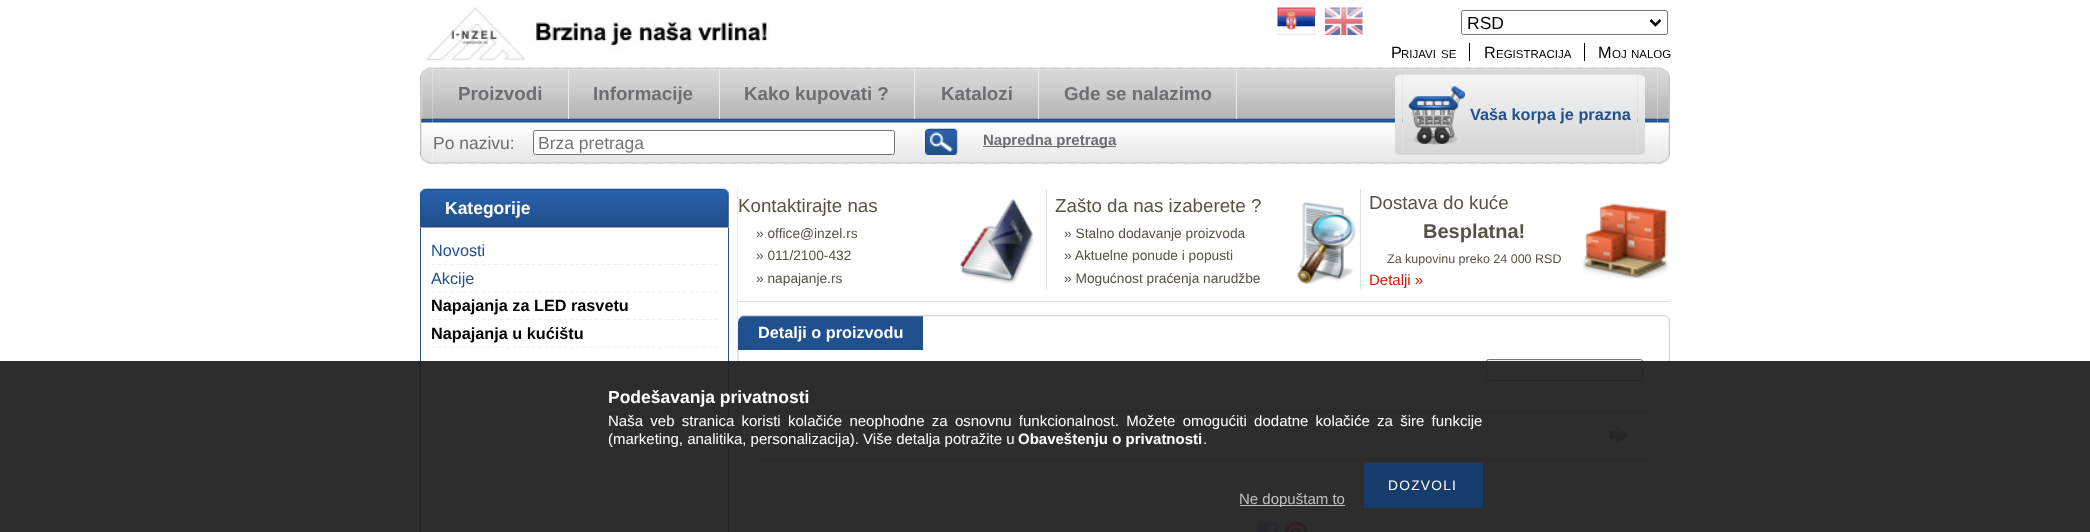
<?xml version="1.0" encoding="UTF-8"?>
<svg xmlns="http://www.w3.org/2000/svg" width="2090" height="532">
    <rect width="100%" height="100%" fill="#FFFFFF"/>
    <image x="423" y="7" width="347" height="54" href="img_01.png"/>
    <image x="1277" y="7" width="38" height="28" href="img_02.png"/>
    <image x="1325" y="7" width="38" height="28" href="img_03.png"/>
    <rect x="1461.5" y="10.5" width="206" height="24" rx="2" fill="none" stroke="#767676"/>
    <path d="M 1650.5 20 L 1655.5 25 L 1660.5 20" fill="none" stroke="#000000" stroke-width="2.5"/>
    <text x="1467" y="29" font-family="Liberation Sans" font-size="17.5" fill="#000000">RSD</text>
    <text x="1391" y="58" font-family="Liberation Sans" font-size="16.25" fill="#000000">P</text>
    <text x="1401" y="58" font-family="Liberation Sans" font-size="11.5" fill="#000000">RIJAVI</text>
    <text x="1441" y="58" font-family="Liberation Sans" font-size="11.5" fill="#000000">SE</text>
    <rect x="1469" y="43" width="1" height="18" fill="#000000"/>
    <text x="1484" y="58" font-family="Liberation Sans" font-size="16.25" fill="#000000">R</text>
    <text x="1496" y="58" font-family="Liberation Sans" font-size="11.5" fill="#000000">EGISTRACIJA</text>
    <rect x="1584" y="43" width="1" height="18" fill="#000000"/>
    <text x="1598" y="58" font-family="Liberation Sans" font-size="16.25" fill="#000000">M</text>
    <text x="1612" y="58" font-family="Liberation Sans" font-size="11.5" fill="#000000">OJ</text>
    <text x="1631" y="58" font-family="Liberation Sans" font-size="11.5" fill="#000000">NALOG</text>
    <image x="420" y="67" width="13" height="97" href="img_04.png"/>
    <image x="432" y="67" width="1226" height="97" href="img_05.png"/>
    <rect x="568" y="69" width="1" height="50" fill="#ECECEC"/>
    <text x="458" y="100" font-family="Liberation Sans" font-size="18.75" font-weight="700" fill="#6C6E71">Proizvodi</text>
    <rect x="719" y="69" width="1" height="50" fill="#ECECEC"/>
    <text x="593" y="100" font-family="Liberation Sans" font-size="18.75" font-weight="700" fill="#6C6E71">Informacije</text>
    <rect x="914" y="69" width="1" height="50" fill="#ECECEC"/>
    <text x="744" y="100" font-family="Liberation Sans" font-size="18.75" font-weight="700" fill="#6C6E71">Kako kupovati ?</text>
    <rect x="1038" y="69" width="1" height="50" fill="#ECECEC"/>
    <text x="941" y="100" font-family="Liberation Sans" font-size="18.75" font-weight="700" fill="#6C6E71">Katalozi</text>
    <rect x="1236" y="69" width="1" height="50" fill="#ECECEC"/>
    <text x="1064" y="100" font-family="Liberation Sans" font-size="18.75" font-weight="700" fill="#6C6E71">Gde se nalazimo</text>
    <text x="433" y="149" font-family="Liberation Sans" font-size="17.5" fill="#6C6E71">Po nazivu:</text>
    <rect x="533.5" y="130.5" width="361" height="24" rx="2" fill="#FFFFFF" stroke="#767676"/>
    <text x="538" y="149" font-family="Liberation Sans" font-size="17.5" fill="#757575">Brza pretraga</text>
    <image x="925" y="128" width="33" height="27" href="img_06.png"/>
    <rect x="983" y="146" width="133" height="1" fill="#6C6E71"/>
    <text x="983" y="145" font-family="Liberation Sans" font-size="15" font-weight="700" fill="#6C6E71">Napredna pretraga</text>
    <image x="1395" y="74" width="8" height="81" href="img_07.png"/>
    <image x="1402" y="74" width="236" height="81" href="img_08.png"/>
    <image x="1408" y="86" width="57" height="59" href="img_09.png"/>
    <text x="1470" y="120" font-family="Liberation Sans" font-size="16.25" font-weight="700" fill="#21508F">Vaša korpa je prazna</text>
    <image x="1637" y="74" width="8" height="81" href="img_10.png"/>
    <image x="1657" y="67" width="13" height="97" href="img_11.png"/>
    <image x="737" y="188" width="933" height="344" href="img_12.png"/>
    <image x="420" y="188" width="309" height="40" href="img_13.png"/>
    <text x="445" y="214" font-family="Liberation Sans" font-size="17.5" font-weight="700" fill="#FFFFFF">Kategorije</text>
    <rect x="728" y="228" width="1" height="304" fill="#204F8C"/>
    <rect x="420" y="228" width="1" height="304" fill="#204F8C"/>
    <path d="M 431 264.5 H 719" fill="none" stroke="#EFEFEF" stroke-width="1.2" stroke-dasharray="3.75 2.55"/>
    <text x="431" y="256" font-family="Liberation Sans" font-size="16.25" fill="#21508F">Novosti</text>
    <path d="M 431 292 H 719" fill="none" stroke="#EFEFEF" stroke-width="1.2" stroke-dasharray="3.75 2.55"/>
    <text x="431" y="284" font-family="Liberation Sans" font-size="16.25" fill="#21508F">Akcije</text>
    <path d="M 431 319.5 H 719" fill="none" stroke="#EFEFEF" stroke-width="1.2" stroke-dasharray="3.75 2.55"/>
    <text x="431" y="311" font-family="Liberation Sans" font-size="16.25" font-weight="700" fill="#000000">Napajanja za LED rasvetu</text>
    <path d="M 431 347 H 719" fill="none" stroke="#EFEFEF" stroke-width="1.2" stroke-dasharray="3.75 2.55"/>
    <text x="431" y="339" font-family="Liberation Sans" font-size="16.25" font-weight="700" fill="#000000">Napajanja u kućištu</text>
    <path d="M 431 374.5 H 719" fill="none" stroke="#EFEFEF" stroke-width="1.2" stroke-dasharray="3.75 2.55"/>
    <rect x="738" y="189" width="932" height="126" fill="#FFFFFF"/>
    <rect x="738" y="301" width="932" height="1" fill="#E0E0E0"/>
    <text x="738" y="212" font-family="Liberation Sans" font-size="18.75" fill="#565247">Kontaktirajte nas</text>
    <text font-family="Liberation Sans" font-size="13.75" fill="#565247">
        <tspan x="756" y="238">» office@inzel.rs</tspan>
        <tspan x="756" y="260">» 011/2100-432</tspan>
        <tspan x="756" y="283">» napajanje.rs</tspan>
    </text>
    <image x="960" y="198" width="74" height="86" href="img_14.png"/>
    <rect x="1046" y="189" width="1" height="100" fill="#E0E0E0"/>
    <text x="1055" y="212" font-family="Liberation Sans" font-size="18.75" fill="#565247">Zašto da nas izaberete ?</text>
    <text font-family="Liberation Sans" font-size="13.75" fill="#565247">
        <tspan x="1064" y="238">» Stalno dodavanje proizvoda</tspan>
        <tspan x="1064" y="260">» Aktuelne ponude i popusti</tspan>
        <tspan x="1064" y="283">» Mogućnost praćenja narudžbe</tspan>
    </text>
    <image x="1297" y="202" width="59" height="82" href="img_15.png"/>
    <rect x="1360" y="189" width="1" height="100" fill="#E0E0E0"/>
    <text x="1369" y="209" font-family="Liberation Sans" font-size="18.75" fill="#565247">Dostava do kuće</text>
    <text x="1423" y="238" font-family="Liberation Sans" font-size="20" font-weight="700" fill="#565247">Besplatna!</text>
    <text x="1387" y="263" font-family="Liberation Sans" font-size="12.5" fill="#565247">Za kupovinu preko 24 000 RSD</text>
    <text x="1369" y="285" font-family="Liberation Sans" font-size="15" fill="#C61A02">Detalji »</text>
    <image x="1583" y="203" width="86" height="76" href="img_16.png"/>
    <rect x="738" y="316" width="185" height="34" fill="#21508F"/>
    <image x="737" y="315" width="933" height="7" href="img_17.png"/>
    <text x="758" y="338" font-family="Liberation Sans" font-size="16.25" font-weight="700" fill="#FFFFFF">Detalji o proizvodu</text>
    <rect x="1486.5" y="359.5" width="156" height="21" rx="2" fill="#EFEFEF" stroke="#767676"/>
    <rect x="761" y="410" width="888" height="3" fill="#D6D6D6"/>
    <image x="781" y="426" width="19" height="18" href="img_18.png"/>
    <image x="1610" y="426" width="19" height="18" href="img_19.png"/>
    <rect x="761" y="458" width="888" height="3" fill="#D6D6D6"/>
    <image x="1255" y="521" width="25" height="11" href="img_20.png"/>
    <image x="1283" y="521" width="26" height="11" href="img_21.png"/>
    <rect x="0" y="361" width="2090" height="171" fill="#222222" fill-opacity="0.95"/>
    <text x="608" y="403" font-family="Liberation Sans" font-size="17.5" font-weight="700" fill="#FFFFFF">Podešavanja privatnosti</text>
    <text font-family="Liberation Sans" font-size="15" fill="#FFFFFF">
        <tspan x="608" y="426" word-spacing="3.1">Naša veb stranica koristi kolačiće neophodne za osnovnu funkcionalnost. Možete omogućiti dodatne kolačiće za šire funkcije</tspan>
        <tspan x="608" y="444">(marketing, analitika, personalizacija). Više detalja potražite u</tspan>
    </text>
    <text x="1018" y="444" font-family="Liberation Sans" font-size="15" font-weight="700" fill="#FFFFFF">Obaveštenju o privatnosti</text>
    <text x="1203" y="444" font-family="Liberation Sans" font-size="15" fill="#FFFFFF">.</text>
    <rect x="1364" y="463" width="119" height="45" fill="#163C6D"/>
    <text x="1388" y="490" font-family="Liberation Sans" font-size="13.75" letter-spacing="1.25" fill="#FFFFFF">DOZVOLI</text>
    <rect x="1240" y="505" width="105" height="1" fill="#C0C0C0"/>
    <text x="1239" y="504" font-family="Liberation Sans" font-size="15" fill="#C0C0C0">Ne dopuštam to</text>
</svg>
